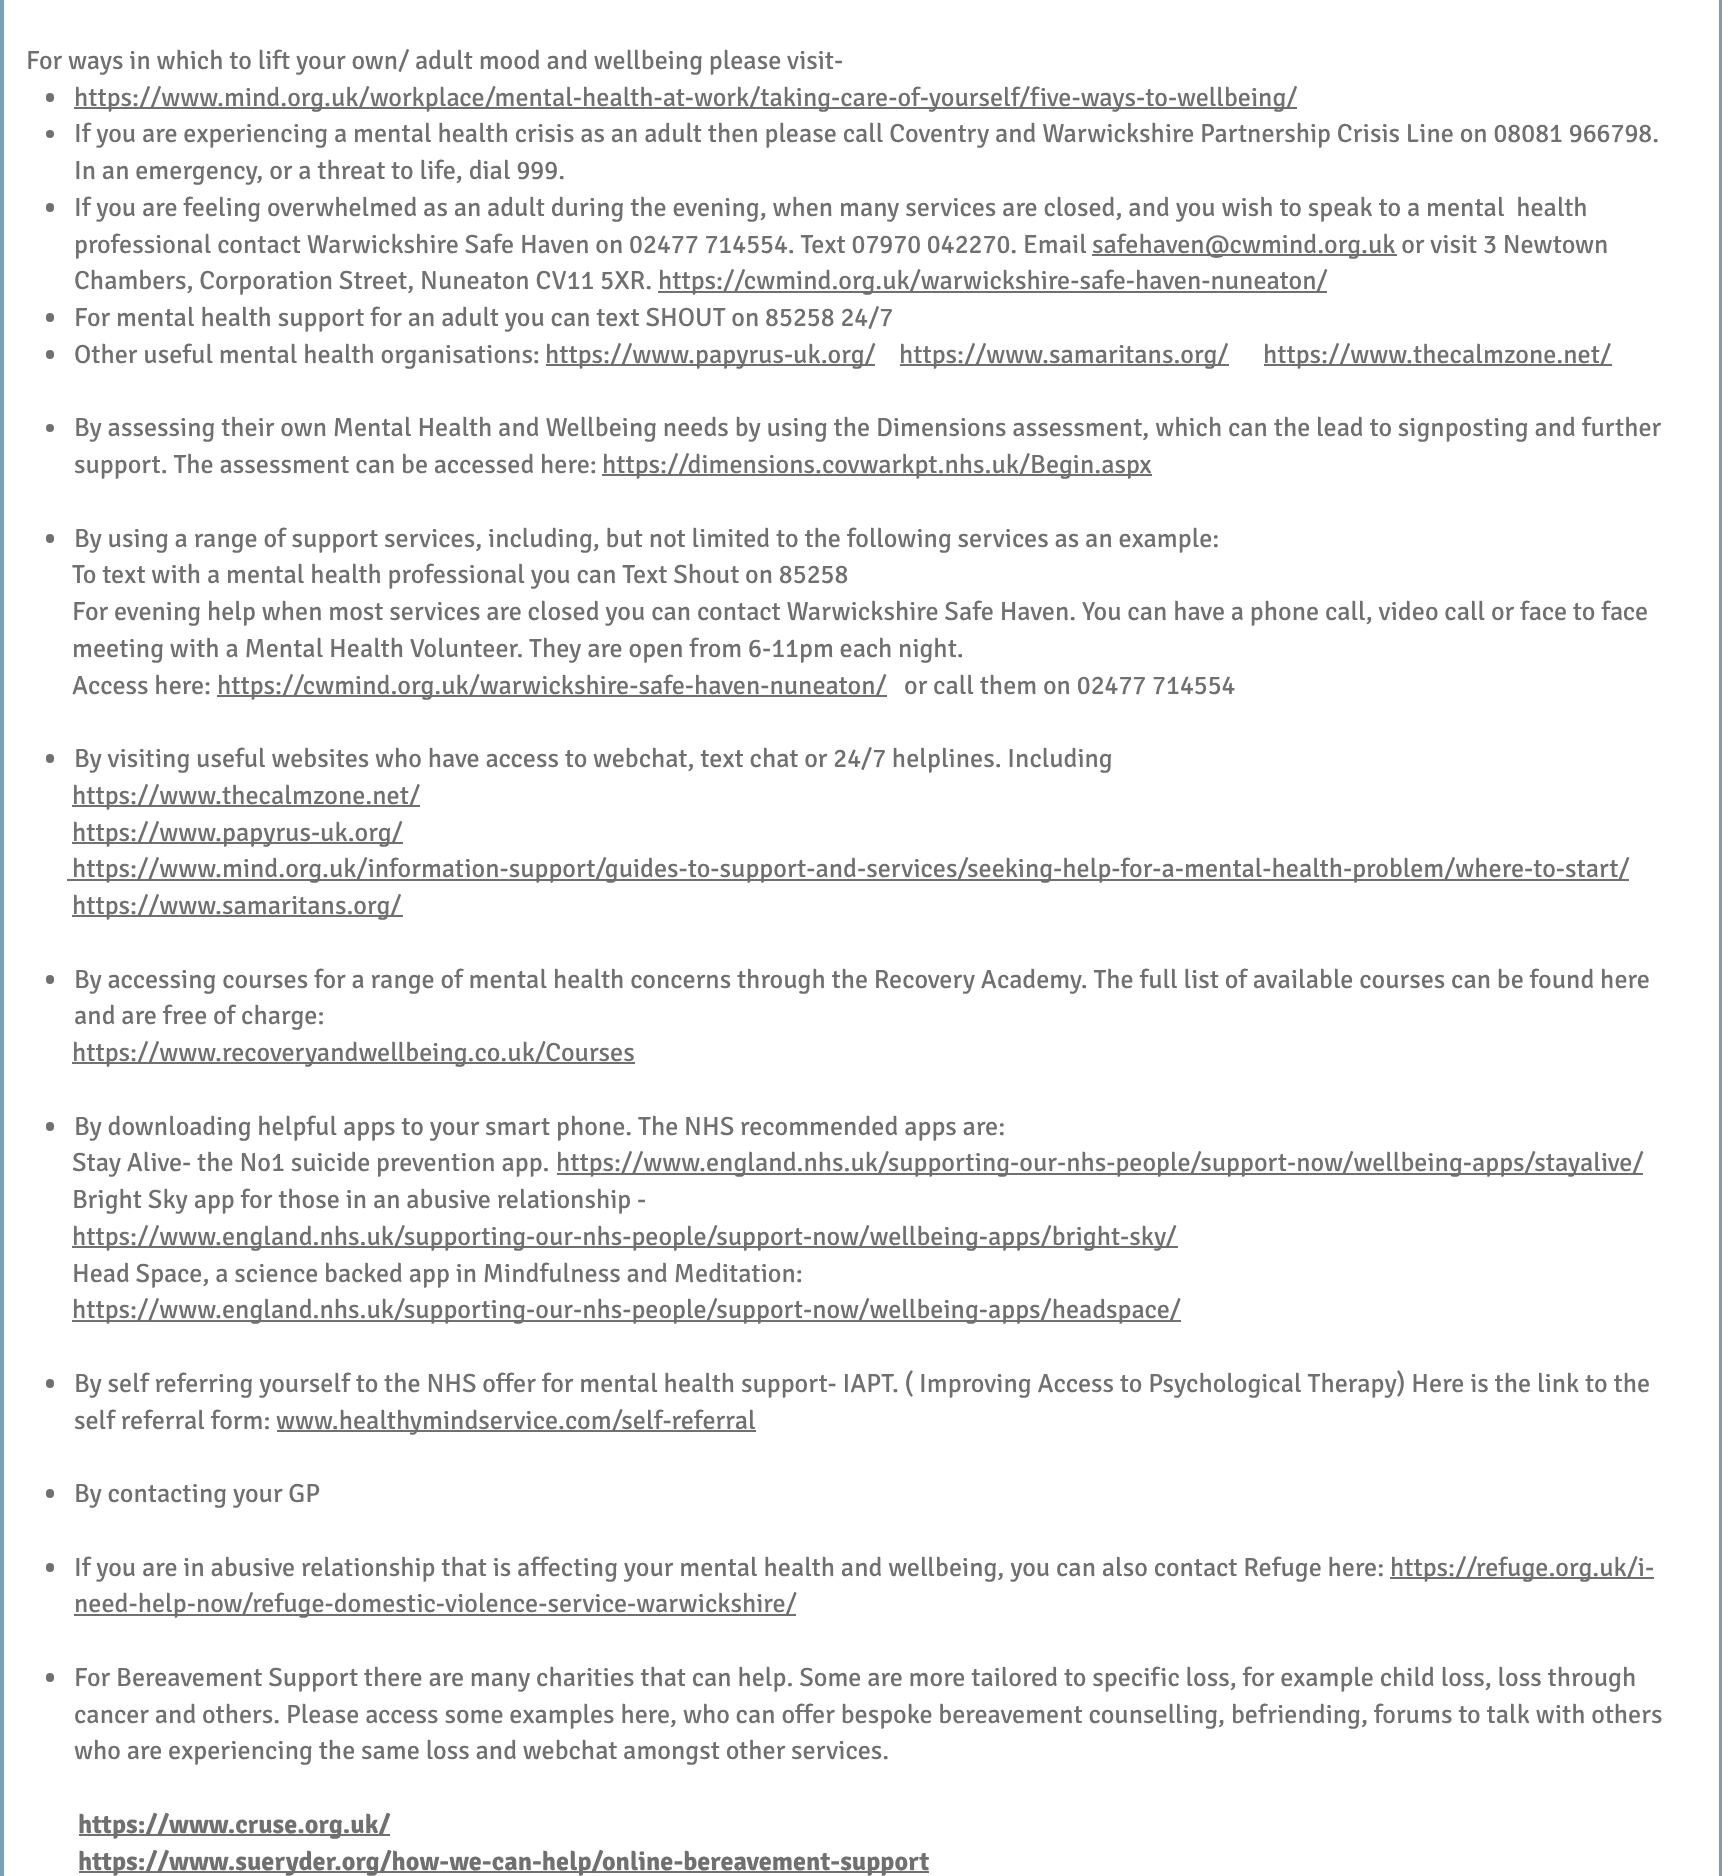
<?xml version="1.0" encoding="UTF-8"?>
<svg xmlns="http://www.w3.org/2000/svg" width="1722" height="1876">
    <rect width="100%" height="100%" fill="#789FB4"/>
    <rect x="4" y="0" width="1715" height="1876" fill="#FFFFFF"/>
    <text x="26" y="69" font-family="Signika" font-size="26.25" fill="#717070">For ways in which to lift your own/ adult mood and wellbeing please visit-</text>
    <rect x="46" y="93" width="8" height="9" rx="4" fill="#717070"/>
    <rect x="74" y="107" width="1223" height="2" fill="#717070"/>
    <text x="74" y="106" font-family="Signika" font-size="26.25" fill="#717070">https://www.mind.org.uk/workplace/mental-health-at-work/taking-care-of-yourself/five-ways-to-wellbeing/</text>
    <circle cx="50" cy="134" r="4" fill="#717070"/>
    <text font-family="Signika" font-size="26.25" fill="#717070">
        <tspan x="74" y="142">If you are experiencing a mental health crisis as an adult then please call Coventry and Warwickshire Partnership Crisis Line on 08081 966798.</tspan>
        <tspan x="74" y="179">In an emergency, or a threat to life, dial 999.</tspan>
    </text>
    <rect x="46" y="203" width="8" height="9" rx="4" fill="#717070"/>
    <text font-family="Signika" font-size="26.25" fill="#717070" xml:space="preserve"><tspan x="74" y="216">If you are feeling overwhelmed as an adult during the evening, when many services are closed, and you wish to speak to a mental  health</tspan><tspan x="74" y="253">professional contact Warwickshire Safe Haven on 02477 714554. Text 07970 042270. Email</tspan></text>
    <rect x="1092" y="254" width="305" height="2" fill="#717070"/>
    <text x="1092" y="253" font-family="Signika" font-size="26.25" fill="#717070">safehaven@cwmind.org.uk or visit 3 Newtown</text>
    <text x="74" y="289" font-family="Signika" font-size="26.25" fill="#717070">Chambers, Corporation Street, Nuneaton CV11 5XR.</text>
    <rect x="658" y="291" width="669" height="2" fill="#717070"/>
    <text x="658" y="289" font-family="Signika" font-size="26.25" fill="#717070">https://cwmind.org.uk/warwickshire-safe-haven-nuneaton/</text>
    <rect x="46" y="313" width="8" height="9" rx="4" fill="#717070"/>
    <text x="74" y="326" font-family="Signika" font-size="26.25" fill="#717070">For mental health support for an adult you can text SHOUT on 85258 24/7</text>
    <rect x="46" y="350" width="8" height="9" rx="4" fill="#717070"/>
    <text x="74" y="363" font-family="Signika" font-size="26.25" fill="#717070">Other useful mental health organisations:</text>
    <rect x="546" y="364" width="329" height="2" fill="#717070"/>
    <text x="545" y="363" font-family="Signika" font-size="26.25" fill="#717070">https://www.papyrus-uk.org/</text>
    <rect x="900" y="364" width="329" height="2" fill="#717070"/>
    <text x="899" y="363" font-family="Signika" font-size="26.25" fill="#717070">https://www.samaritans.org/</text>
    <rect x="1264" y="364" width="348" height="2" fill="#717070"/>
    <text x="1263" y="363" font-family="Signika" font-size="26.25" fill="#717070">https://www.thecalmzone.net/</text>
    <circle cx="50" cy="428" r="4" fill="#717070"/>
    <text font-family="Signika" font-size="26.25" fill="#717070">
        <tspan x="74" y="436">By assessing their own Mental Health and Wellbeing needs by using the Dimensions assessment, which can the lead to signposting and further</tspan>
        <tspan x="74" y="473">support. The assessment can be accessed here:</tspan>
    </text>
    <rect x="602" y="474" width="550" height="2" fill="#717070"/>
    <text x="602" y="473" font-family="Signika" font-size="26.25" fill="#717070">https://dimensions.covwarkpt.nhs.uk/Begin.aspx</text>
    <rect x="46" y="534" width="8" height="9" rx="4" fill="#717070"/>
    <text x="74" y="547" font-family="Signika" font-size="26.25" fill="#717070">By using a range of support services, including, but not limited to the following services as an example:</text>
    <text font-family="Signika" font-size="26.25" fill="#717070">
        <tspan x="72" y="583">To text with a mental health professional you can Text Shout on 85258</tspan>
        <tspan x="72" y="620">For evening help when most services are closed you can contact Warwickshire Safe Haven. You can have a phone call, video call or face to face</tspan>
        <tspan x="72" y="657">meeting with a Mental Health Volunteer. They are open from 6-11pm each night.</tspan>
        <tspan x="72" y="694">Access here:</tspan>
    </text>
    <rect x="217" y="695" width="670" height="2" fill="#717070"/>
    <text x="217" y="694" font-family="Signika" font-size="26.25" fill="#717070">https://cwmind.org.uk/warwickshire-safe-haven-nuneaton/</text>
    <text x="904" y="694" font-family="Signika" font-size="26.25" fill="#717070">or call them on 02477 714554</text>
    <rect x="46" y="754" width="8" height="9" rx="4" fill="#717070"/>
    <text x="74" y="767" font-family="Signika" font-size="26.25" fill="#717070">By visiting useful websites who have access to webchat, text chat or 24/7 helplines. Including</text>
    <rect x="72" y="805" width="348" height="2" fill="#717070"/>
    <text x="72" y="804" font-family="Signika" font-size="26.25" fill="#717070">https://www.thecalmzone.net/</text>
    <rect x="72" y="842" width="331" height="2" fill="#717070"/>
    <text x="72" y="841" font-family="Signika" font-size="26.25" fill="#717070">https://www.papyrus-uk.org/</text>
    <rect x="67" y="879" width="1562" height="2" fill="#717070"/>
    <text x="72" y="877" font-family="Signika" font-size="26.25" fill="#717070">https://www.mind.org.uk/information-support/guides-to-support-and-services/seeking-help-for-a-mental-health-problem/where-to-start/</text>
    <rect x="72" y="915" width="331" height="2" fill="#717070"/>
    <text x="72" y="914" font-family="Signika" font-size="26.25" fill="#717070">https://www.samaritans.org/</text>
    <rect x="46" y="975" width="8" height="9" rx="4" fill="#717070"/>
    <text font-family="Signika" font-size="26.25" fill="#717070">
        <tspan x="74" y="988">By accessing courses for a range of mental health concerns through the Recovery Academy. The full list of available courses can be found here</tspan>
        <tspan x="74" y="1024">and are free of charge:</tspan>
    </text>
    <rect x="72" y="1062" width="563" height="2" fill="#717070"/>
    <text x="72" y="1061" font-family="Signika" font-size="26.25" fill="#717070">https://www.recoveryandwellbeing.co.uk/Courses</text>
    <rect x="46" y="1122" width="8" height="9" rx="4" fill="#717070"/>
    <text x="74" y="1135" font-family="Signika" font-size="26.25" fill="#717070">By downloading helpful apps to your smart phone. The NHS recommended apps are:</text>
    <text x="72" y="1171" font-family="Signika" font-size="26.25" fill="#717070">Stay Alive- the No1 suicide prevention app.</text>
    <rect x="557" y="1173" width="1086" height="2" fill="#717070"/>
    <text x="556" y="1171" font-family="Signika" font-size="26.25" fill="#717070">https://www.england.nhs.uk/supporting-our-nhs-people/support-now/wellbeing-apps/stayalive/</text>
    <text x="72" y="1208" font-family="Signika" font-size="26.25" fill="#717070">Bright Sky app for those in an abusive relationship -</text>
    <rect x="72" y="1246" width="1106" height="2" fill="#717070"/>
    <text font-family="Signika" font-size="26.25" fill="#717070">
        <tspan x="72" y="1245">https://www.england.nhs.uk/supporting-our-nhs-people/support-now/wellbeing-apps/bright-sky/</tspan>
        <tspan x="72" y="1282">Head Space, a science backed app in Mindfulness and Meditation:</tspan>
    </text>
    <rect x="72" y="1320" width="1109" height="2" fill="#717070"/>
    <text x="72" y="1318" font-family="Signika" font-size="26.25" fill="#717070">https://www.england.nhs.uk/supporting-our-nhs-people/support-now/wellbeing-apps/headspace/</text>
    <rect x="46" y="1379" width="8" height="9" rx="4" fill="#717070"/>
    <text font-family="Signika" font-size="26.25" fill="#717070">
        <tspan x="74" y="1392">By self referring yourself to the NHS offer for mental health support- IAPT. ( Improving Access to Psychological Therapy) Here is the link to the</tspan>
        <tspan x="74" y="1429">self referral form:</tspan>
    </text>
    <rect x="277" y="1430" width="479" height="2" fill="#717070"/>
    <text x="276" y="1429" font-family="Signika" font-size="26.25" fill="#717070">www.healthymindservice.com/self-referral</text>
    <rect x="46" y="1489" width="8" height="9" rx="4" fill="#717070"/>
    <text x="74" y="1502" font-family="Signika" font-size="26.25" fill="#717070">By contacting your GP</text>
    <rect x="46" y="1563" width="8" height="9" rx="4" fill="#717070"/>
    <text x="74" y="1576" font-family="Signika" font-size="26.25" fill="#717070">If you are in abusive relationship that is affecting your mental health and wellbeing, you can also contact Refuge here:</text>
    <rect x="1390" y="1577" width="264" height="2" fill="#717070"/>
    <text x="1390" y="1576" font-family="Signika" font-size="26.25" fill="#717070">https://refuge.org.uk/i-</text>
    <rect x="74" y="1614" width="722" height="2" fill="#717070"/>
    <text x="74" y="1612" font-family="Signika" font-size="26.25" fill="#717070">need-help-now/refuge-domestic-violence-service-warwickshire/</text>
    <rect x="46" y="1673" width="8" height="9" rx="4" fill="#717070"/>
    <text font-family="Signika" font-size="26.25" fill="#717070">
        <tspan x="74" y="1686">For Bereavement Support there are many charities that can help. Some are more tailored to specific loss, for example child loss, loss through</tspan>
        <tspan x="74" y="1723">cancer and others. Please access some examples here, who can offer bespoke bereavement counselling, befriending, forums to talk with others</tspan>
        <tspan x="74" y="1759">who are experiencing the same loss and webchat amongst other services.</tspan>
    </text>
    <rect x="79" y="1834" width="311" height="2" fill="#717070"/>
    <text x="78" y="1833" font-family="Signika" font-size="26.25" font-weight="700" fill="#717070">https://www.cruse.org.uk/</text>
    <rect x="79" y="1871" width="850" height="2" fill="#717070"/>
    <text x="78" y="1870" font-family="Signika" font-size="26.25" font-weight="700" fill="#717070">https://www.sueryder.org/how-we-can-help/online-bereavement-support</text>
</svg>
